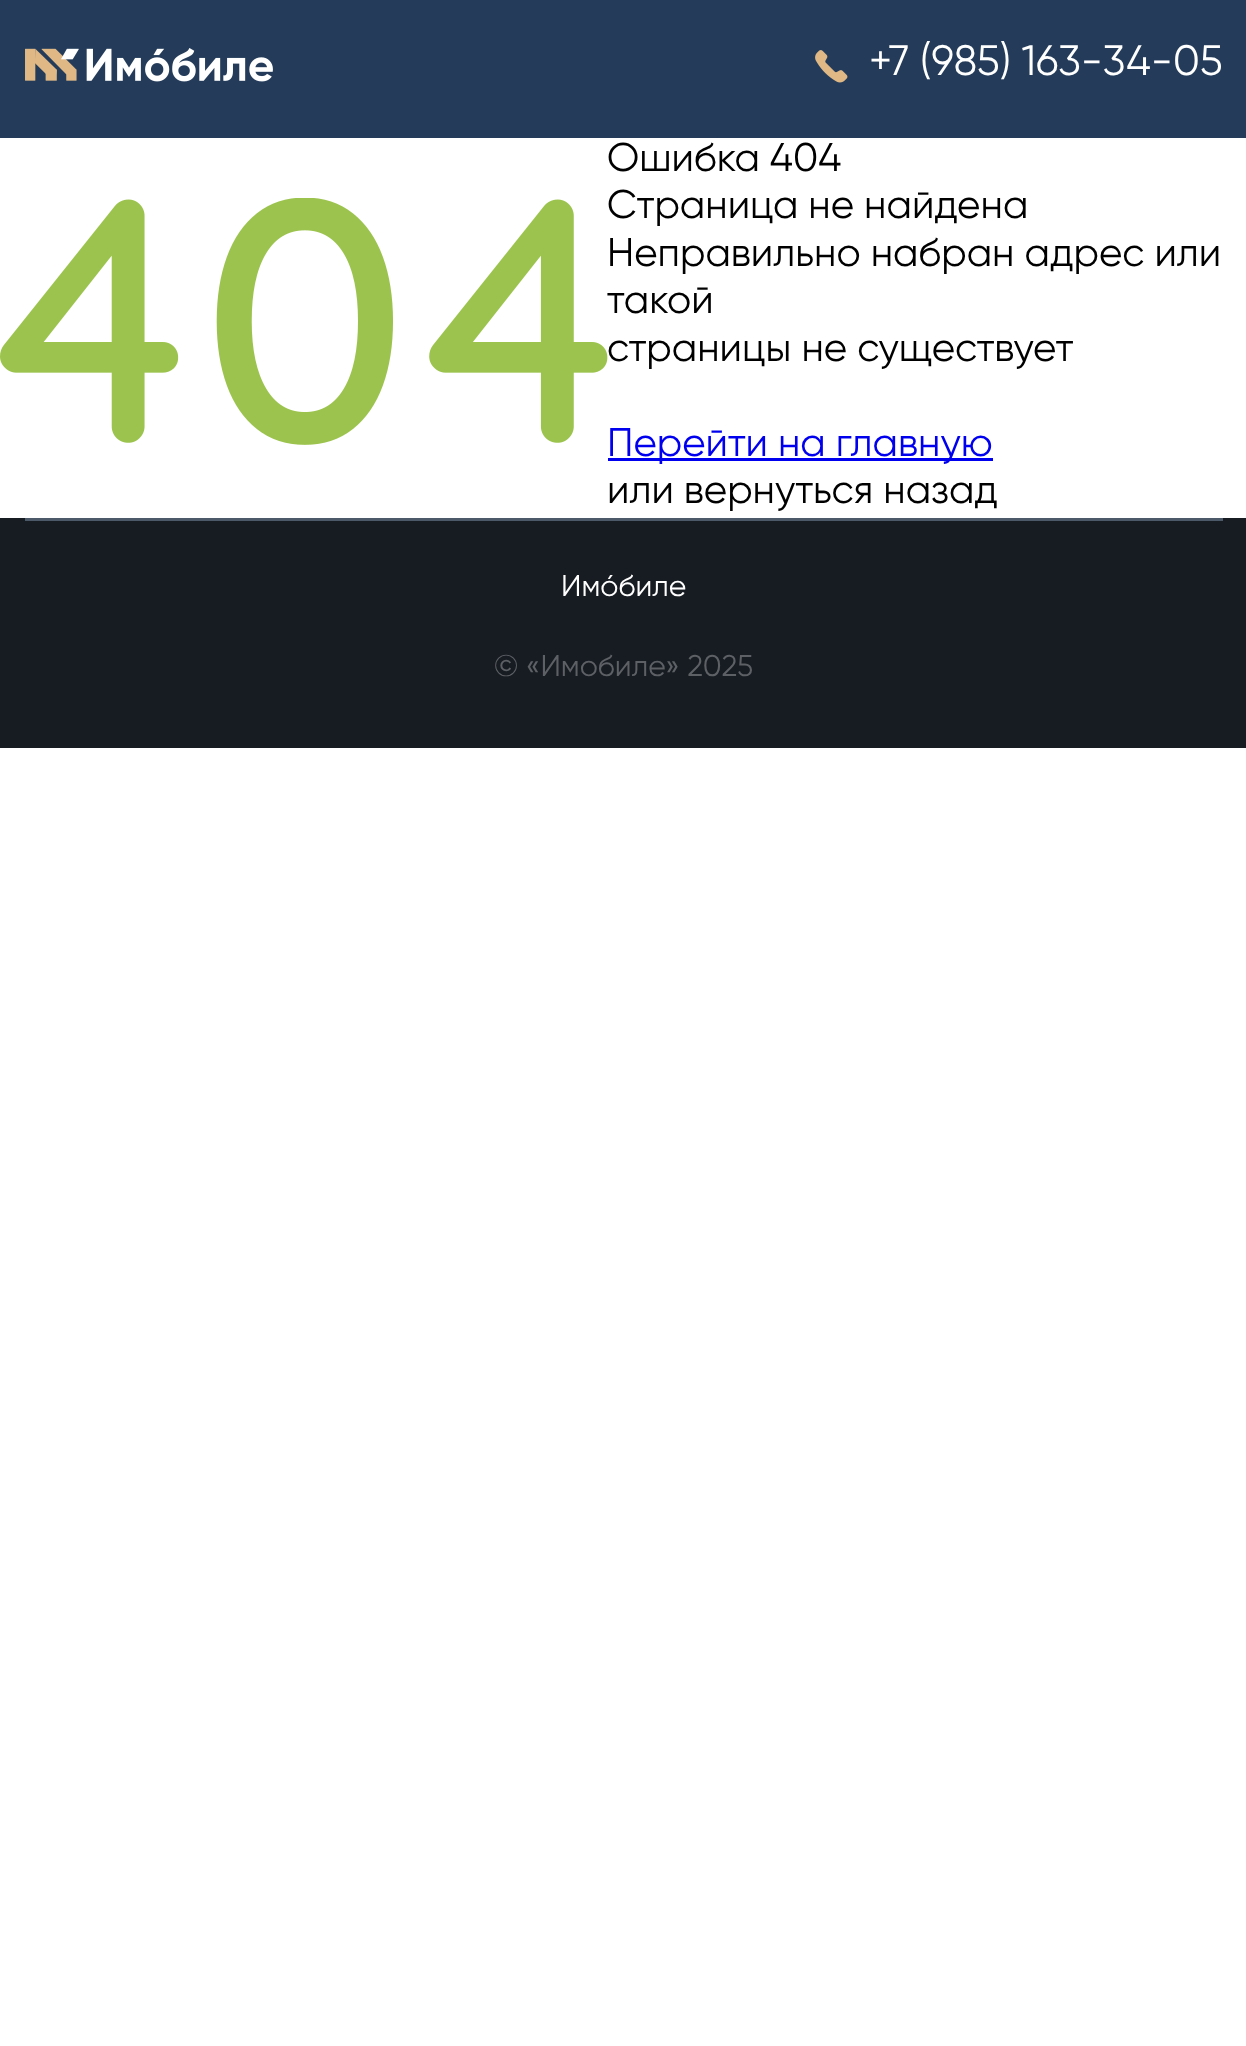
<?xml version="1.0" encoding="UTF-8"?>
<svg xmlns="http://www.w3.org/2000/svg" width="1246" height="2046">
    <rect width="100%" height="100%" fill="#FFFFFF"/>
    <rect x="0" y="0" width="1246" height="138" fill="#243C5A"/>
    <image x="25" y="48" width="248" height="34" href="img_01.png"/>
    <image x="815" y="50" width="33" height="33" href="img_02.png"/>
    <text x="869" y="75" font-family="Gilroy" font-size="42.5" fill="#FFFFFF">+7 (985) 163-34-05</text>
    <text x="607" y="313" font-family="Gilroy" font-size="40" fill="#000000">такой</text>
    <image x="0" y="198" width="608" height="247" href="img_03.png"/>
    <text font-family="Gilroy" font-size="40" fill="#000000">
        <tspan x="607" y="171">Ошибка 404</tspan>
        <tspan x="607" y="218">Страница не найдена</tspan>
        <tspan x="607" y="266">Неправильно набран адрес или</tspan>
    </text>
    <text x="607" y="361" font-family="Gilroy" font-size="40" fill="#000000">страницы не существует</text>
    <rect x="608" y="458" width="385" height="3" fill="#0000EE"/>
    <text x="607" y="456" font-family="Gilroy" font-size="40" fill="#0000EE">Перейти на главную</text>
    <text x="607" y="503" font-family="Gilroy" font-size="40" fill="#000000">или вернуться назад</text>
    <rect x="0" y="518" width="1246" height="230" fill="#171C23"/>
    <rect x="25" y="518" width="1198" height="3" fill="#4B5969"/>
    <text x="561" y="596" font-family="Gilroy" font-size="30" fill="#FFFFFF">Имо́биле</text>
    <text x="494" y="676" font-family="Gilroy" font-size="30" fill="#5D6065">© «Имобиле» 2025</text>
</svg>
